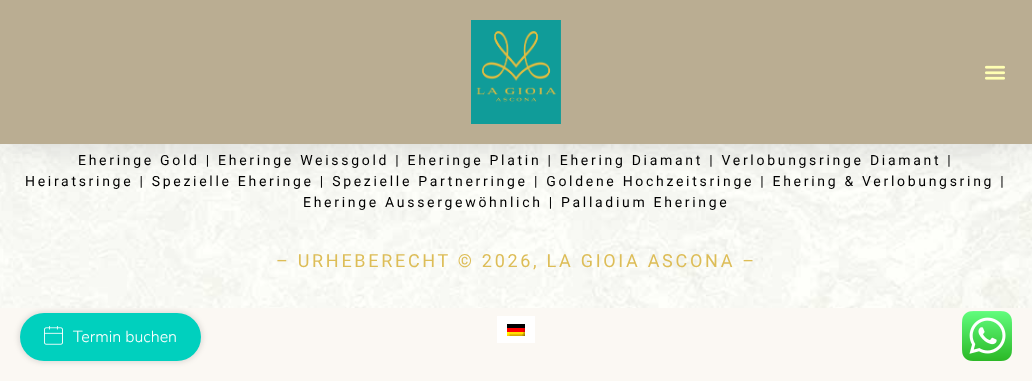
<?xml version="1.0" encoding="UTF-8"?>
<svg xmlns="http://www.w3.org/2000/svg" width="1032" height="381">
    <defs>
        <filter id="blur1" x="-50%" y="-200%" width="200%" height="500%"><feGaussianBlur stdDeviation="20"/></filter>
        <filter id="blur2" x="-50%" y="-200%" width="200%" height="500%"><feGaussianBlur stdDeviation="2.5"/></filter>
    </defs>
    <rect width="100%" height="100%" fill="#FBF8F3"/>
    <image x="0" y="144" width="1032" height="164" href="img_03.png"/>
    <rect x="0" y="0" width="1032" height="144" fill="#000000" fill-opacity="0.16" filter="url(#blur1)"/>
    <rect x="0" y="0" width="1032" height="144" fill="#BAAD92"/>
    <image x="471" y="20" width="90" height="104" href="img_01.png"/>
    <image x="985" y="65" width="20" height="15" href="img_02.png"/>
    <text x="78" y="165" font-family="Roboto" font-size="14" letter-spacing="2.7" fill="#000000">Eheringe Gold | Eheringe Weissgold | Eheringe Platin | Ehering Diamant | Verlobungsringe Diamant |</text>
    <text x="25" y="186" font-family="Roboto" font-size="14" letter-spacing="2.7" fill="#000000">Heiratsringe | Spezielle Eheringe | Spezielle Partnerringe | Goldene Hochzeitsringe | Ehering &amp; Verlobungsring |</text>
    <text x="303" y="207" font-family="Roboto" font-size="14" letter-spacing="2.7" fill="#000000">Eheringe Aussergewöhnlich | Palladium Eheringe</text>
    <text x="276" y="267" font-family="Roboto" font-size="18" letter-spacing="2.7" fill="#DDBD57">– URHEBERECHT © 2026, LA GIOIA ASCONA –</text>
    <image x="962" y="311" width="50" height="50" href="img_04.png"/>
    <rect x="18" y="311" width="185" height="52" rx="26" fill="#000000" fill-opacity="0.1" filter="url(#blur2)"/>
    <rect x="20" y="313" width="181" height="48" rx="24" fill="#00D0BE"/>
    <image x="44" y="326" width="19" height="19" href="img_05.png"/>
    <text x="73" y="342" font-family="Nunito" font-size="16" font-weight="300" fill="#FFFFFF">Termin buchen</text>
    <rect x="497" y="316" width="38" height="27" fill="#FFFFFF"/>
    <image x="507" y="324" width="18" height="12" href="img_06.png"/>
</svg>
